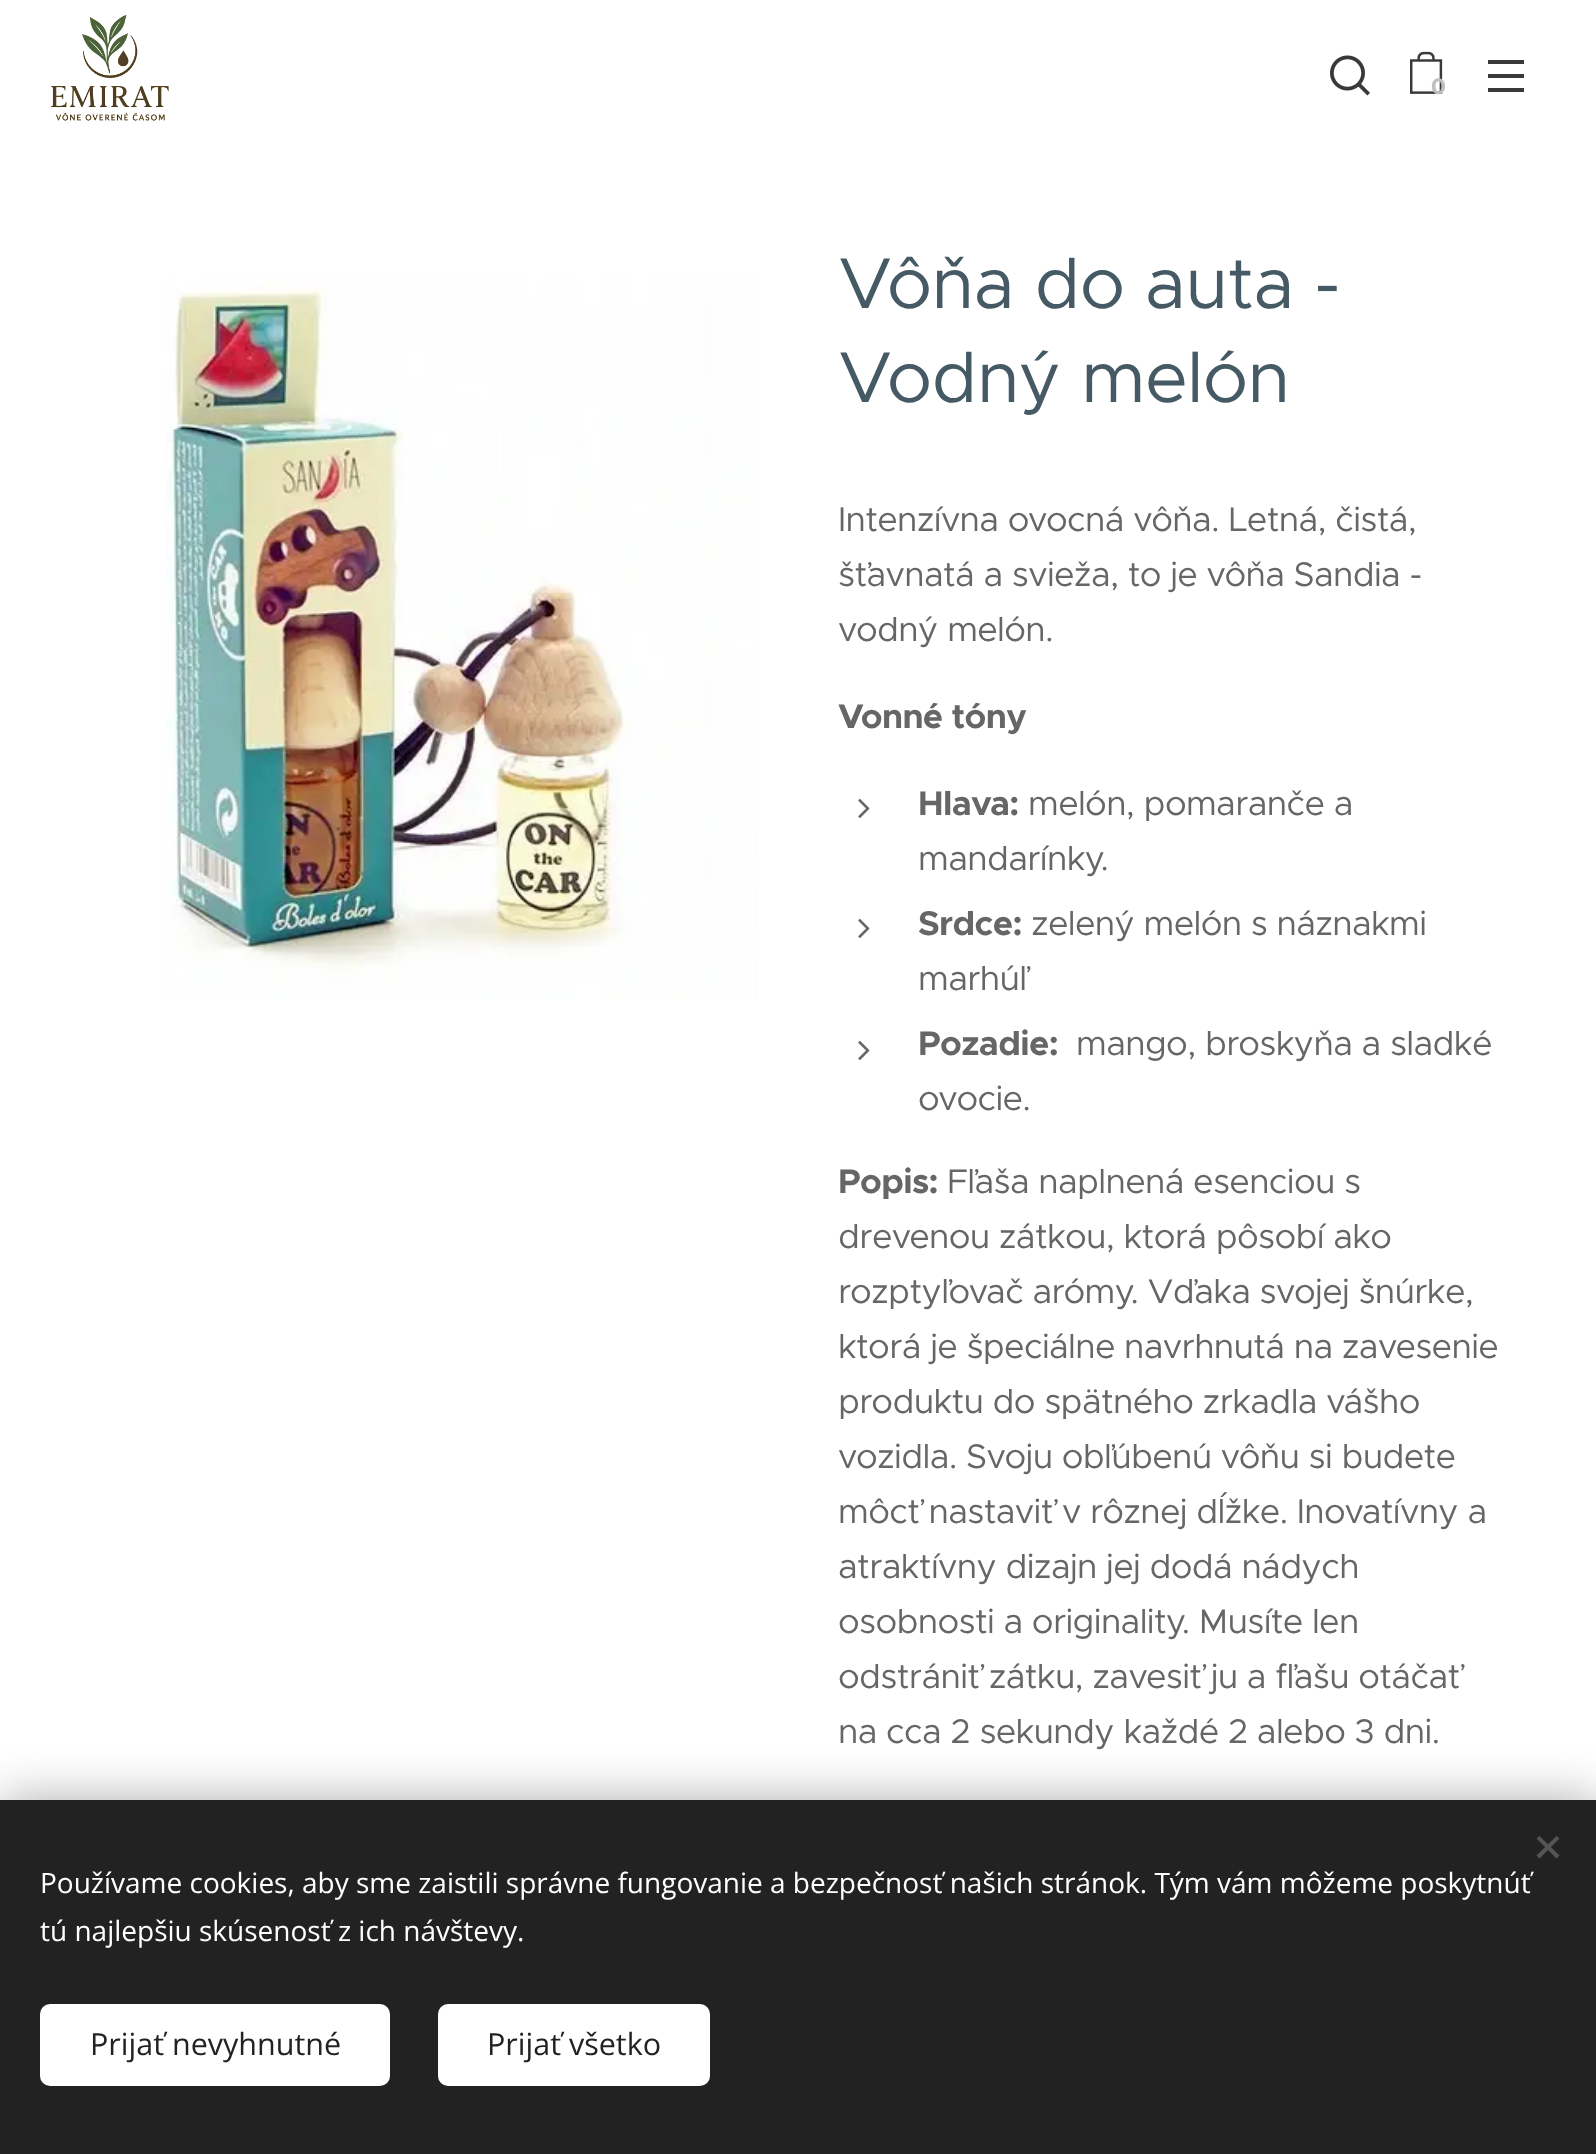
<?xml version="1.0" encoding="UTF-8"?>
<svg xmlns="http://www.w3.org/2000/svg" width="1596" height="2154">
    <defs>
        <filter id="blur1" x="-50%" y="-200%" width="200%" height="500%"><feGaussianBlur stdDeviation="25"/></filter>
    </defs>
    <rect width="100%" height="100%" fill="#FFFFFF"/>
    <image x="51" y="15" width="118" height="106" href="img_01.png"/>
    <image x="1330" y="55" width="40" height="41" href="img_02.png"/>
    <image x="1410" y="51" width="33" height="43" href="img_03.png"/>
    <text x="1431" y="94" font-family="Montserrat" font-size="22" font-weight="700" fill="#BFBFBF">0</text>
    <rect x="1488" y="74" width="36" height="4" fill="#393939"/>
    <rect x="1488" y="60" width="36" height="4" fill="#393939"/>
    <rect x="1488" y="88" width="36" height="4" fill="#393939"/>
    <image x="166" y="278" width="592" height="723" href="img_04.png"/>
    <text font-family="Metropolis" font-size="72" letter-spacing="-0.65" fill="#455A64">
        <tspan x="838" y="308">Vôňa do auta -</tspan>
        <tspan x="838" y="402">Vodný melón</tspan>
    </text>
    <text font-family="Metropolis" font-size="34.4" letter-spacing="-0.65" fill="#666666">
        <tspan x="838" y="531">Intenzívna ovocná vôňa. Letná, čistá,</tspan>
        <tspan x="838" y="586">šťavnatá a svieža, to je vôňa Sandia -</tspan>
        <tspan x="838" y="641">vodný melón.</tspan>
    </text>
    <text x="838" y="728" font-family="Metropolis" font-size="34.4" font-weight="700" letter-spacing="-0.65" fill="#666666">Vonné tóny</text>
    <image x="858" y="798" width="12" height="20" href="img_05.png"/>
    <text x="918" y="815" font-family="Metropolis" font-size="34.4" font-weight="700" letter-spacing="-0.65" fill="#666666">Hlava:</text>
    <text x="1028" y="815" font-family="Metropolis" font-size="34.4" letter-spacing="-0.65" fill="#666666">melón, pomaranče a</text>
    <text x="918" y="870" font-family="Metropolis" font-size="34.4" letter-spacing="-0.65" fill="#666666">mandarínky.</text>
    <image x="858" y="918" width="12" height="20" href="img_05.png"/>
    <text x="918" y="935" font-family="Metropolis" font-size="34.4" font-weight="700" letter-spacing="-0.65" fill="#666666">Srdce:</text>
    <text x="1031" y="935" font-family="Metropolis" font-size="34.4" letter-spacing="-0.65" fill="#666666">zelený melón s náznakmi</text>
    <text x="918" y="990" font-family="Metropolis" font-size="34.4" letter-spacing="-0.65" fill="#666666">marhúľ</text>
    <image x="858" y="1040" width="12" height="20" href="img_05.png"/>
    <text x="918" y="1055" font-family="Metropolis" font-size="34.4" font-weight="700" letter-spacing="-0.65" fill="#666666">Pozadie:</text>
    <text x="1076" y="1055" font-family="Metropolis" font-size="34.4" letter-spacing="-0.65" fill="#666666">mango, broskyňa a sladké</text>
    <text x="918" y="1110" font-family="Metropolis" font-size="34.4" letter-spacing="-0.65" fill="#666666">ovocie.</text>
    <text x="838" y="1193" font-family="Metropolis" font-size="34.4" font-weight="700" letter-spacing="-0.65" fill="#666666">Popis:</text>
    <text x="947" y="1193" font-family="Metropolis" font-size="34.4" letter-spacing="-0.65" fill="#666666">Fľaša naplnená esenciou s</text>
    <text font-family="Metropolis" font-size="34.4" letter-spacing="-0.65" fill="#666666">
        <tspan x="838" y="1248">drevenou zátkou, ktorá pôsobí ako</tspan>
        <tspan x="838" y="1303">rozptyľovač arómy. Vďaka svojej šnúrke,</tspan>
        <tspan x="838" y="1358">ktorá je špeciálne navrhnutá na zavesenie</tspan>
        <tspan x="838" y="1413">produktu do spätného zrkadla vášho</tspan>
        <tspan x="838" y="1468">vozidla. Svoju obľúbenú vôňu si budete</tspan>
        <tspan x="838" y="1523">môcť nastaviť v rôznej dĺžke. Inovatívny a</tspan>
        <tspan x="838" y="1578">atraktívny dizajn jej dodá nádych</tspan>
        <tspan x="838" y="1633">osobnosti a originality. Musíte len</tspan>
        <tspan x="838" y="1688">odstrániť zátku, zavesiť ju a fľašu otáčať</tspan>
        <tspan x="838" y="1743">na cca 2 sekundy každé 2 alebo 3 dni.</tspan>
    </text>
    <rect x="0" y="1800" width="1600" height="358" fill="#000000" fill-opacity="0.33" filter="url(#blur1)"/>
    <rect x="0" y="1800" width="1596" height="354" fill="#222222"/>
    <path d="M 1536.5 1855.5 L 1556.5 1836 L 1559.5 1838.5 L 1539.5 1858.5 Z" fill="#555555"/>
    <path d="M 1539.5 1836 L 1559.5 1855.5 L 1556.5 1858.5 L 1536.5 1838.5 Z" fill="#555555"/>
    <text font-family="Open Sans" font-size="28" fill="#FFFFFF">
        <tspan x="40" y="1893">Používame cookies, aby sme zaistili správne fungovanie a bezpečnosť našich stránok. Tým vám môžeme poskytnúť</tspan>
        <tspan x="40" y="1941">tú najlepšiu skúsenosť z ich návštevy.</tspan>
    </text>
    <rect x="40" y="2004" width="350" height="82" rx="10" fill="#FFFFFF"/>
    <text x="90" y="2055" font-family="Open Sans" font-size="30.5" fill="#222222">Prijať nevyhnutné</text>
    <rect x="438" y="2004" width="272" height="82" rx="10" fill="#FFFFFF"/>
    <text x="487" y="2055" font-family="Open Sans" font-size="30.5" fill="#222222">Prijať všetko</text>
</svg>
